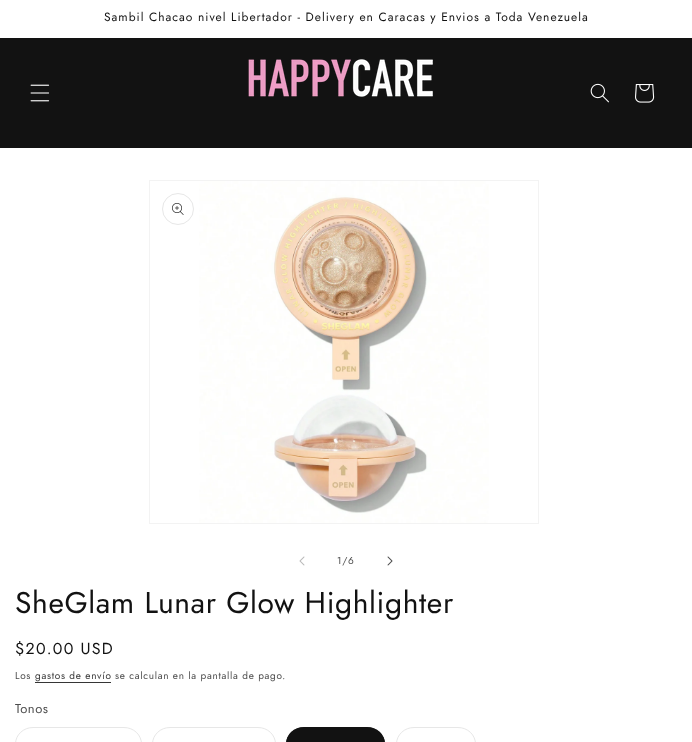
<?xml version="1.0" encoding="UTF-8"?>
<svg xmlns="http://www.w3.org/2000/svg" width="692" height="742">
    <rect width="100%" height="100%" fill="#FFFFFF"/>
    <text x="104" y="21" font-family="Jost" font-size="12" letter-spacing="1" fill="#121212">Sambil Chacao nivel Libertador - Delivery en Caracas y Envios a Toda Venezuela</text>
    <rect x="0" y="38" width="692" height="110" fill="#121212"/>
    <image x="30" y="84" width="20" height="18" href="img_01.png"/>
    <image x="248" y="59" width="185" height="38" href="img_02.png"/>
    <image x="590" y="83" width="19" height="20" href="img_03.png"/>
    <image x="635" y="84" width="20" height="19" href="img_04.png"/>
    <rect x="149.5" y="180.5" width="389" height="343" fill="none" stroke="#F3F3F3"/>
    <circle cx="178" cy="209" r="15.5" fill="none" stroke="#E7E7E7"/>
    <image x="172" y="203" width="12" height="12" href="img_05.png"/>
    <image x="199" y="181" width="290" height="342" href="img_06.png"/>
    <image x="299" y="556" width="6" height="10" href="img_07.png"/>
    <text x="337" y="564" font-family="Jost" font-size="10" letter-spacing="0.7" fill="#4D4D4D">1/6</text>
    <image x="387" y="556" width="6" height="10" href="img_08.png"/>
    <text x="15" y="613" font-family="Jost" font-size="30" letter-spacing="0.6" fill="#121212">SheGlam Lunar Glow Highlighter</text>
    <text x="15" y="654" font-family="Jost" font-size="16" letter-spacing="1.25" fill="#121212">$20.00 USD</text>
    <text x="15" y="679" font-family="Jost" font-size="10" letter-spacing="0.7" fill="#4D4D4D">Los</text>
    <text x="35" y="679" font-family="Jost" font-size="10" letter-spacing="0.7" fill="#363636">gastos de envío</text>
    <rect x="35" y="682" width="76" height="1" fill="#363636"/>
    <text x="115" y="679" font-family="Jost" font-size="10" letter-spacing="0.7" fill="#4D4D4D">se calculan en la pantalla de pago.</text>
    <text x="15" y="713" font-family="Jost" font-size="13" letter-spacing="0.5" fill="#4D4D4D">Tonos</text>
    <rect x="15.5" y="727.5" width="126" height="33" rx="17.5" fill="none" stroke="#E7E7E7"/>
    <rect x="152.5" y="727.5" width="123" height="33" rx="17.5" fill="none" stroke="#E7E7E7"/>
    <rect x="286" y="727" width="99" height="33" rx="18" fill="#121212"/>
    <rect x="286.5" y="727.5" width="98" height="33" rx="17.5" fill="none" stroke="#121212" stroke-opacity="0.55"/>
    <rect x="396.5" y="727.5" width="79" height="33" rx="17.5" fill="none" stroke="#E7E7E7"/>
</svg>
